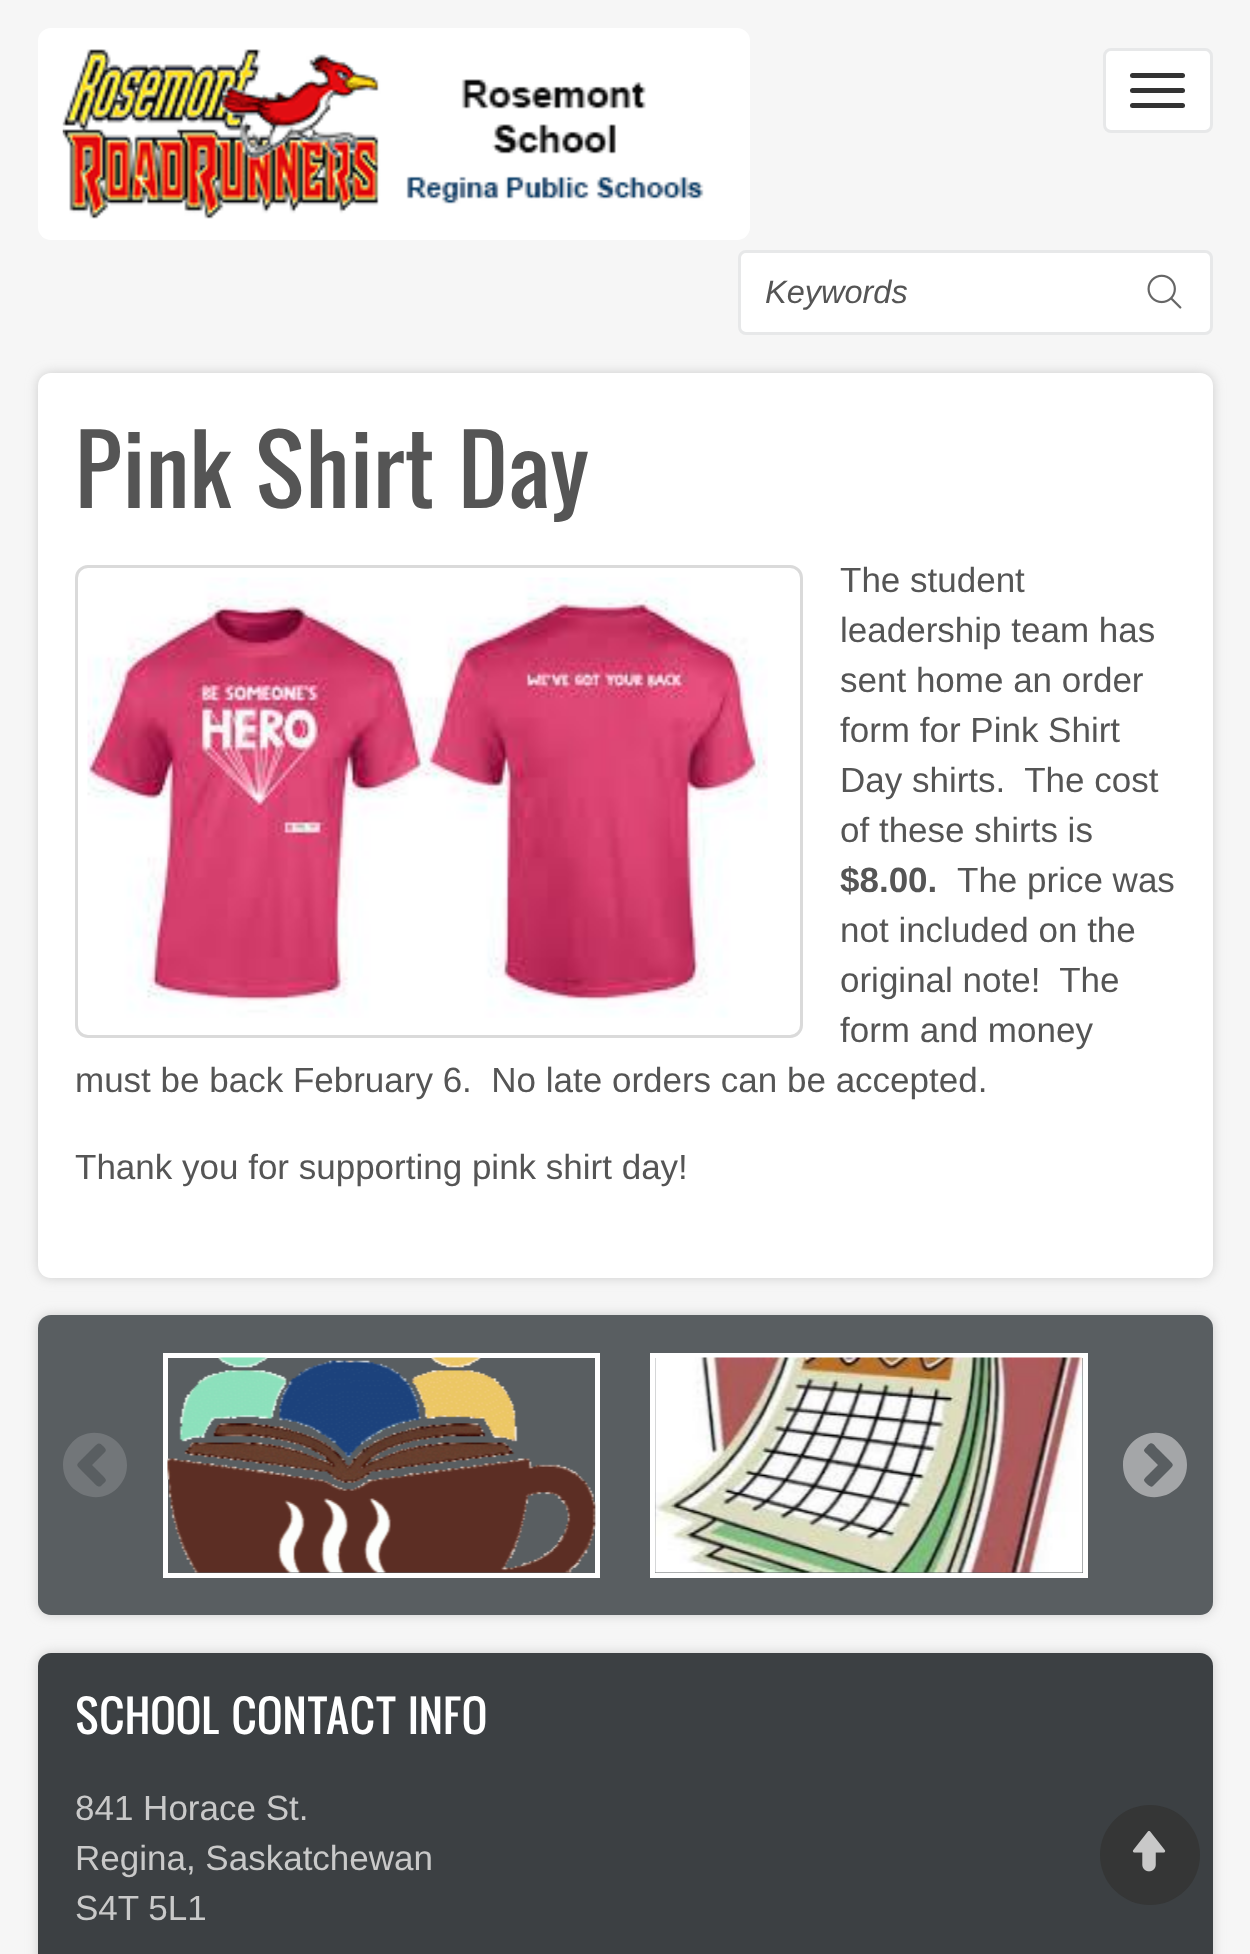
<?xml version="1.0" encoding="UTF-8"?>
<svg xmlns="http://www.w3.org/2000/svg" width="1250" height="1954">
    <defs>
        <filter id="blur1" x="-50%" y="-200%" width="200%" height="500%"><feGaussianBlur stdDeviation="6"/></filter>
    </defs>
    <rect width="100%" height="100%" fill="#F6F6F6"/>
    <rect x="1104.5" y="49.5" width="107" height="82" rx="6.5" fill="#FFFFFF" stroke="#E7E8E9" stroke-width="3"/>
    <rect x="1130" y="73" width="55" height="5" rx="2.5" fill="#333333"/>
    <rect x="1130" y="88" width="55" height="5" rx="2.5" fill="#333333"/>
    <rect x="1130" y="103" width="55" height="5" rx="2.5" fill="#333333"/>
    <rect x="38" y="28" width="712" height="212" rx="13" fill="#FFFFFF"/>
    <image x="62" y="49" width="642" height="170" href="img_01.png"/>
    <rect x="739.5" y="251.5" width="472" height="82" rx="6.5" fill="#FFFFFF" stroke="#E7E8E9" stroke-width="3"/>
    <text x="765" y="303" font-family="Liberation Sans" font-size="32.5" font-style="italic" fill="#555555">Keywords</text>
    <image x="1147" y="274" width="35" height="35" href="img_02.png"/>
    <rect x="38" y="373" width="1175" height="905" rx="13" fill="#CCCCCC" filter="url(#blur1)"/>
    <rect x="38" y="373" width="1175" height="905" rx="13" fill="#FFFFFF"/>
    <text x="75" y="508" font-family="Oswald" font-size="90" fill="#555555">Pink Shirt Day</text>
    <rect x="76.5" y="566.5" width="725" height="470" rx="11.5" fill="none" stroke="#DADADA" stroke-width="3"/>
    <image x="87" y="577" width="681" height="441" href="img_03.png"/>
    <text font-family="Liberation Sans" font-size="35" fill="#555555" xml:space="preserve"><tspan x="840" y="592">The student</tspan><tspan x="840" y="642">leadership team has</tspan><tspan x="840" y="692">sent home an order</tspan><tspan x="840" y="742">form for Pink Shirt</tspan><tspan x="840" y="792">Day shirts.  The cost</tspan><tspan x="840" y="842">of these shirts is</tspan></text>
    <text x="840" y="892" font-family="Liberation Sans" font-size="35" font-weight="700" fill="#555555">$8.00.</text>
    <text x="957" y="892" font-family="Liberation Sans" font-size="35" fill="#555555">The price was</text>
    <text font-family="Liberation Sans" font-size="35" fill="#555555" xml:space="preserve"><tspan x="840" y="942">not included on the</tspan><tspan x="840" y="992">original note!  The</tspan><tspan x="840" y="1042">form and money</tspan></text>
    <text x="75" y="1092" font-family="Liberation Sans" font-size="35" fill="#555555" xml:space="preserve">must be back February 6.  No late orders can be accepted.</text>
    <text x="75" y="1179" font-family="Liberation Sans" font-size="35" fill="#555555">Thank you for supporting pink shirt day!</text>
    <rect x="38" y="1315" width="1175" height="300" rx="13" fill="#CCCCCC" filter="url(#blur1)"/>
    <rect x="38" y="1315" width="1175" height="300" rx="13" fill="#595E61"/>
    <path d="M 101 1486 C 98 1488 95 1484 94 1483 L 81 1470 C 76 1465 76 1465 81 1460 L 94 1447 C 98 1443 99 1442 103 1446 C 105 1448 107 1450 105 1452 L 92 1465 L 103 1476 C 108 1481 106 1481 101 1486 Z M 127 1465 C 127 1435 88 1421 70 1445 C 65 1451 63 1458 63 1465 C 63 1495 102 1509 120 1485 C 125 1479 127 1472 127 1465 Z" fill="#727679"/>
    <rect x="165.5" y="1355.5" width="432" height="220" fill="none" stroke="#FFFFFF" stroke-width="5"/>
    <image x="167" y="1357" width="429" height="216" href="img_04.png"/>
    <rect x="652.5" y="1355.5" width="433" height="220" fill="none" stroke="#FFFFFF" stroke-width="5"/>
    <image x="654" y="1357" width="429" height="216" href="img_05.png"/>
    <path d="M 1153 1486 C 1151 1488 1148 1485 1147 1484 C 1143 1480 1143 1480 1147 1476 L 1158 1465 L 1147 1454 C 1142 1450 1144 1450 1148 1445 C 1153 1440 1155 1447 1159 1450 L 1169 1460 C 1174 1465 1174 1465 1169 1470 Z M 1187 1465 C 1187 1458 1185 1451 1180 1445 C 1162 1421 1123 1435 1123 1465 C 1123 1472 1125 1479 1130 1485 C 1148 1509 1187 1495 1187 1465 Z" fill="#A4A6A8"/>
    <rect x="38" y="1653" width="1175" height="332" rx="13" fill="#CCCCCC" filter="url(#blur1)"/>
    <rect x="38" y="1653" width="1175" height="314" rx="13" fill="#3C4043"/>
    <text x="75" y="1734" font-family="Oswald" font-size="43" fill="#FFFFFF">SCHOOL CONTACT INFO</text>
    <text font-family="Liberation Sans" font-size="35" fill="#C9C9C9">
        <tspan x="75" y="1820">841 Horace St.</tspan>
        <tspan x="75" y="1870">Regina, Saskatchewan</tspan>
        <tspan x="75" y="1920">S4T 5L1</tspan>
    </text>
    <circle cx="1150" cy="1855" r="50" fill="#353636"/>
    <image x="1132" y="1831" width="34" height="41" href="img_06.png"/>
</svg>
